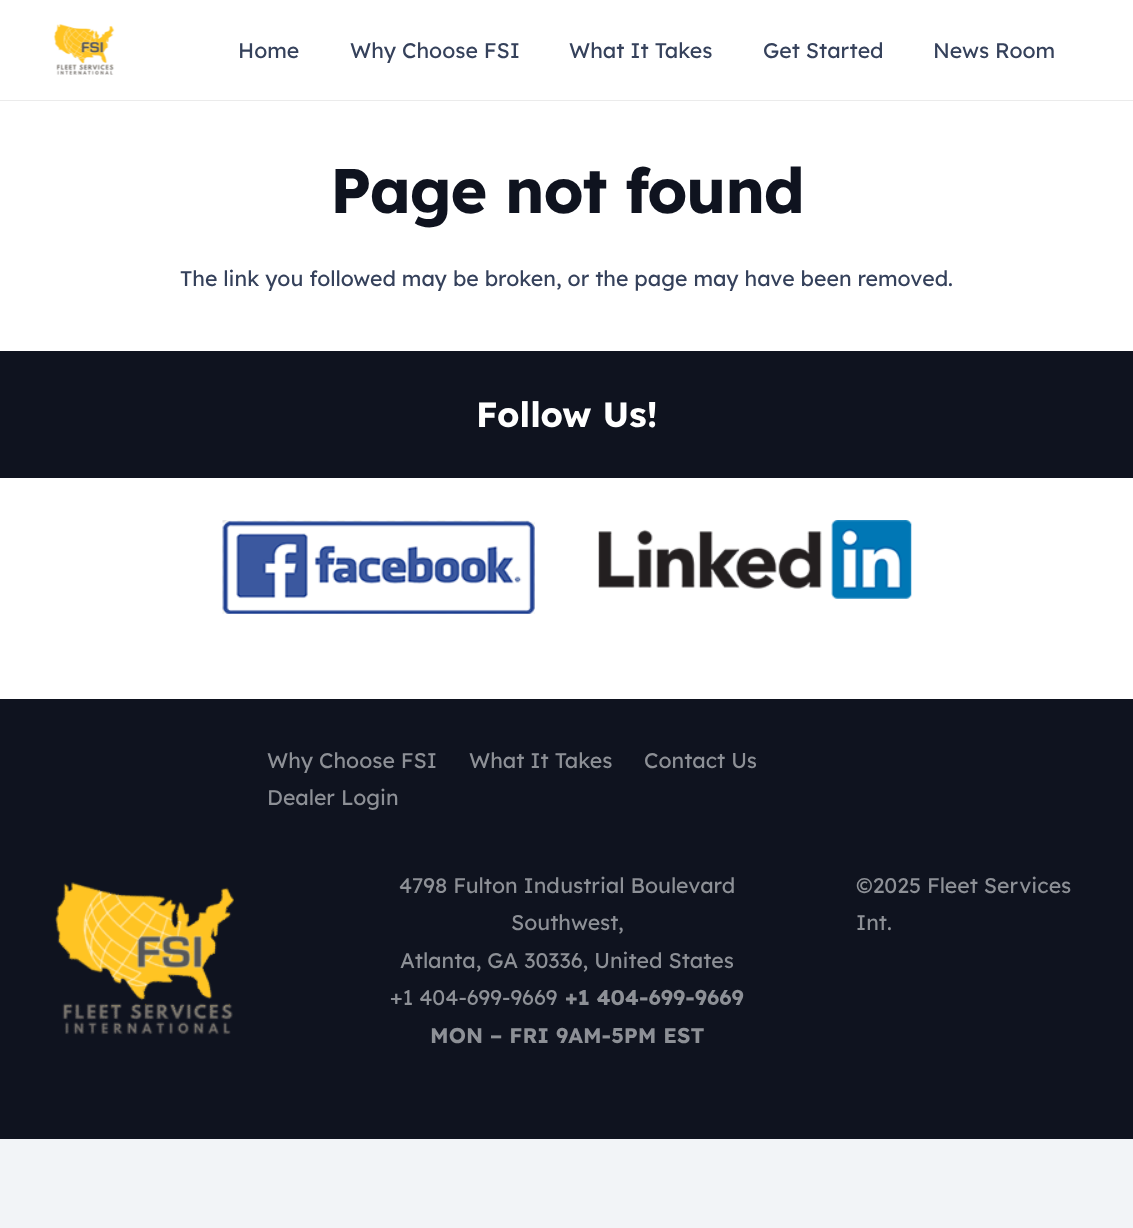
<?xml version="1.0" encoding="UTF-8"?>
<svg xmlns="http://www.w3.org/2000/svg" width="1133" height="1228">
    <rect width="100%" height="100%" fill="#F2F4F7"/>
    <rect x="0" y="0" width="1133" height="351" fill="#FFFFFF"/>
    <path d="M 0 100 V 101 H 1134 V 1 V 100 Z" fill="#EBEBEB"/>
    <image x="53" y="24" width="62" height="51" href="img_01.png"/>
    <text x="238" y="58" font-family="Lexend" font-size="21.25" fill="#35415B">Home</text>
    <text x="350" y="58" font-family="Lexend" font-size="21.25" fill="#35415B">Why Choose FSI</text>
    <text x="569" y="58" font-family="Lexend" font-size="21.25" fill="#35415B">What It Takes</text>
    <text x="763" y="58" font-family="Lexend" font-size="21.25" fill="#35415B">Get Started</text>
    <text x="933" y="58" font-family="Lexend" font-size="21.25" fill="#35415B">News Room</text>
    <text x="330" y="213" font-family="Lexend" font-size="62.75" font-weight="700" letter-spacing="-1.25" fill="#0F131F">Page not found</text>
    <text x="180" y="286" font-family="Lexend" font-size="21.25" fill="#35415B">The link you followed may be broken, or the page may have been removed.</text>
    <rect x="0" y="478" width="1133" height="221" fill="#FFFFFF"/>
    <rect x="0" y="351" width="1133" height="127" fill="#0F131F"/>
    <text x="476" y="427" font-family="Lexend" font-size="35" font-weight="700" fill="#FFFFFF">Follow Us!</text>
    <image x="222" y="520" width="313" height="94" href="img_02.png"/>
    <image x="598" y="520" width="314" height="79" href="img_03.png"/>
    <rect x="0" y="699" width="1133" height="440" fill="#0F131F"/>
    <text x="267" y="768" font-family="Lexend" font-size="21.25" fill="#8D9096">Why Choose FSI</text>
    <text x="469" y="768" font-family="Lexend" font-size="21.25" fill="#8D9096">What It Takes</text>
    <text x="644" y="768" font-family="Lexend" font-size="21.25" fill="#8D9096">Contact Us</text>
    <text x="267" y="805" font-family="Lexend" font-size="21.25" fill="#8D9096">Dealer Login</text>
    <image x="55" y="882" width="179" height="153" href="img_04.png"/>
    <text x="399" y="893" font-family="Lexend" font-size="21.25" fill="#8D9096">4798 Fulton Industrial Boulevard</text>
    <text x="511" y="930" font-family="Lexend" font-size="21.25" fill="#8D9096">Southwest,</text>
    <text x="400" y="968" font-family="Lexend" font-size="21.25" fill="#8D9096">Atlanta, GA 30336, United States</text>
    <text x="390" y="1005" font-family="Lexend" font-size="21.25" fill="#8D9096">+1 404-699-9669</text>
    <text x="565" y="1005" font-family="Lexend" font-size="21.25" font-weight="700" fill="#8D9096">+1 404-699-9669</text>
    <text x="430" y="1043" font-family="Lexend" font-size="21.25" font-weight="700" fill="#8D9096">MON – FRI 9AM-5PM EST</text>
    <text font-family="Lexend" font-size="21.25" fill="#8D9096">
        <tspan x="856" y="893">©2025 Fleet Services</tspan>
        <tspan x="856" y="930">Int.</tspan>
    </text>
</svg>
